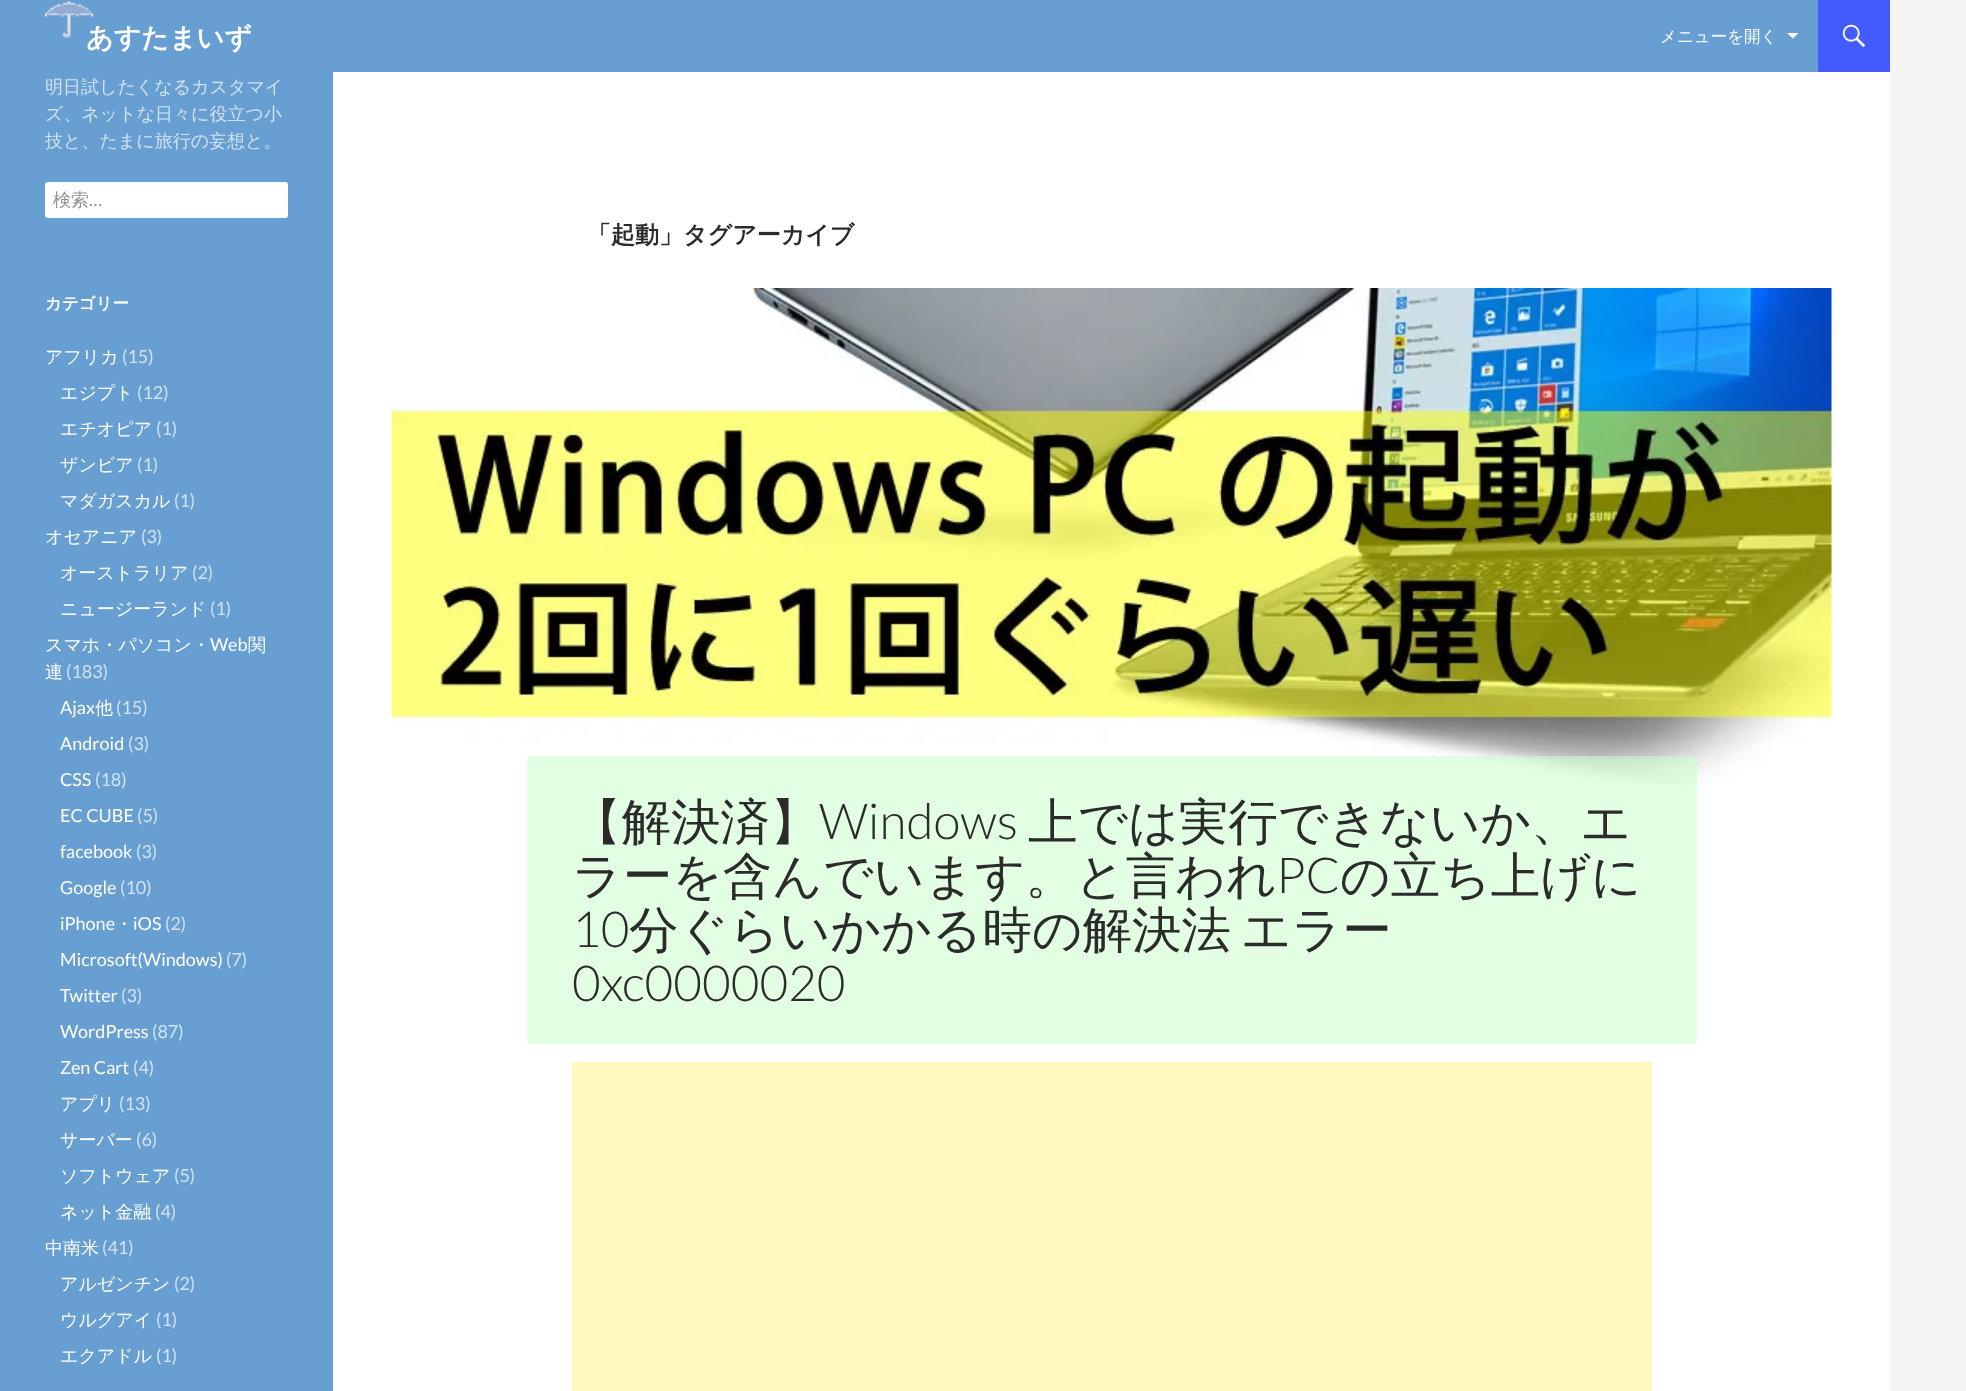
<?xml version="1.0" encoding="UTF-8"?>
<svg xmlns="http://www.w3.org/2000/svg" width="1966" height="1391">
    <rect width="100%" height="100%" fill="#F5F5F5"/>
    <rect x="333" y="72" width="1557" height="1319" fill="#FFFFFF"/>
    <rect x="0" y="0" width="1818" height="72" fill="#689FD3"/>
    <image x="45" y="1" width="49" height="37" href="img_01.png"/>
    <text x="86" y="47" font-family="WenQuanYi Zen Hei" font-size="27" font-weight="700" fill="#FFFFFF">あすたまいず</text>
    <text x="1660" y="42" font-family="WenQuanYi Zen Hei" font-size="16.5" font-weight="500" fill="#FFFFFF">メニューを開く</text>
    <path d="M 1787 33 H 1798.5 L 1793 38.5 Z" fill="#FFFFFF"/>
    <rect x="1818" y="0" width="72" height="72" fill="#425AFF"/>
    <image x="1842" y="24" width="24" height="24" href="img_02.png"/>
    <rect x="0" y="72" width="333" height="1319" fill="#689FD3"/>
    <text font-family="WenQuanYi Zen Hei" font-size="18" font-weight="500" fill="#D2E2F2">
        <tspan x="45" y="93">明日試したくなるカスタマイ</tspan>
        <tspan x="45" y="120">ズ、ネットな日々に役立つ小</tspan>
        <tspan x="45" y="147">技と、たまに旅行の妄想と。</tspan>
    </text>
    <rect x="45" y="182" width="243" height="36" rx="3" fill="#FFFFFF"/>
    <rect x="46" y="183" width="241" height="34" rx="2" fill="none" stroke="#FFFFFF" stroke-opacity="0.2" stroke-width="2"/>
    <text x="53" y="206" font-family="WenQuanYi Zen Hei" font-size="18" font-weight="500" fill="#939393">検索</text>
    <text x="89" y="206" font-family="Lato" font-size="18" fill="#939393">…</text>
    <text x="45" y="309" font-family="WenQuanYi Zen Hei" font-size="16.5" font-weight="700" fill="#FFFFFF">カテゴリー</text>
    <text x="45" y="363" font-family="WenQuanYi Zen Hei" font-size="18" font-weight="500" fill="#FFFFFF">アフリカ</text>
    <text x="122" y="363" font-family="Lato" font-size="18" fill="#D2E2F2">(15)</text>
    <text x="60" y="399" font-family="WenQuanYi Zen Hei" font-size="18" font-weight="500" fill="#FFFFFF">エジプト</text>
    <text x="137" y="399" font-family="Lato" font-size="18" fill="#D2E2F2">(12)</text>
    <text x="60" y="435" font-family="WenQuanYi Zen Hei" font-size="18" font-weight="500" fill="#FFFFFF">エチオピア</text>
    <text x="156" y="435" font-family="Lato" font-size="18" fill="#D2E2F2">(1)</text>
    <text x="60" y="471" font-family="WenQuanYi Zen Hei" font-size="18" font-weight="500" fill="#FFFFFF">ザンビア</text>
    <text x="137" y="471" font-family="Lato" font-size="18" fill="#D2E2F2">(1)</text>
    <text x="60" y="507" font-family="WenQuanYi Zen Hei" font-size="18" font-weight="500" fill="#FFFFFF">マダガスカル</text>
    <text x="174" y="507" font-family="Lato" font-size="18" fill="#D2E2F2">(1)</text>
    <text x="45" y="543" font-family="WenQuanYi Zen Hei" font-size="18" font-weight="500" fill="#FFFFFF">オセアニア</text>
    <text x="141" y="543" font-family="Lato" font-size="18" fill="#D2E2F2">(3)</text>
    <text x="60" y="579" font-family="WenQuanYi Zen Hei" font-size="18" font-weight="500" fill="#FFFFFF">オーストラリア</text>
    <text x="192" y="579" font-family="Lato" font-size="18" fill="#D2E2F2">(2)</text>
    <text x="60" y="615" font-family="WenQuanYi Zen Hei" font-size="18" font-weight="500" fill="#FFFFFF">ニュージーランド</text>
    <text x="210" y="615" font-family="Lato" font-size="18" fill="#D2E2F2">(1)</text>
    <text x="45" y="651" font-family="WenQuanYi Zen Hei" font-size="18" font-weight="500" fill="#FFFFFF">スマホ・パソコン・</text>
    <text x="210" y="651" font-family="Lato" font-size="18" fill="#FFFFFF">Web</text>
    <text x="248" y="651" font-family="WenQuanYi Zen Hei" font-size="18" font-weight="500" fill="#FFFFFF">関</text>
    <text x="45" y="678" font-family="WenQuanYi Zen Hei" font-size="18" font-weight="500" fill="#FFFFFF">連</text>
    <text x="66" y="678" font-family="Lato" font-size="18" fill="#D2E2F2">(183)</text>
    <text x="60" y="714" font-family="Lato" font-size="18" fill="#FFFFFF">Ajax</text>
    <text x="95" y="714" font-family="WenQuanYi Zen Hei" font-size="18" font-weight="500" fill="#FFFFFF">他</text>
    <text x="116" y="714" font-family="Lato" font-size="18" fill="#D2E2F2">(15)</text>
    <text x="60" y="750" font-family="Lato" font-size="18" fill="#FFFFFF">Android</text>
    <text x="128" y="750" font-family="Lato" font-size="18" fill="#D2E2F2">(3)</text>
    <text x="60" y="786" font-family="Lato" font-size="18" fill="#FFFFFF">CSS</text>
    <text x="95" y="786" font-family="Lato" font-size="18" fill="#D2E2F2">(18)</text>
    <text x="60" y="822" font-family="Lato" font-size="18" fill="#FFFFFF">EC CUBE</text>
    <text x="137" y="822" font-family="Lato" font-size="18" fill="#D2E2F2">(5)</text>
    <text x="60" y="858" font-family="Lato" font-size="18" fill="#FFFFFF">facebook</text>
    <text x="136" y="858" font-family="Lato" font-size="18" fill="#D2E2F2">(3)</text>
    <text x="60" y="894" font-family="Lato" font-size="18" fill="#FFFFFF">Google</text>
    <text x="120" y="894" font-family="Lato" font-size="18" fill="#D2E2F2">(10)</text>
    <text x="60" y="930" font-family="Lato" font-size="18" fill="#FFFFFF">iPhone</text>
    <text x="115" y="930" font-family="WenQuanYi Zen Hei" font-size="18" font-weight="500" fill="#FFFFFF">・</text>
    <text x="133" y="930" font-family="Lato" font-size="18" fill="#FFFFFF">iOS</text>
    <text x="165" y="930" font-family="Lato" font-size="18" fill="#D2E2F2">(2)</text>
    <text x="60" y="966" font-family="Lato" font-size="18" fill="#FFFFFF">Microsoft(Windows)</text>
    <text x="226" y="966" font-family="Lato" font-size="18" fill="#D2E2F2">(7)</text>
    <text x="60" y="1002" font-family="Lato" font-size="18" fill="#FFFFFF">Twitter</text>
    <text x="121" y="1002" font-family="Lato" font-size="18" fill="#D2E2F2">(3)</text>
    <text x="60" y="1038" font-family="Lato" font-size="18" fill="#FFFFFF">WordPress</text>
    <text x="152" y="1038" font-family="Lato" font-size="18" fill="#D2E2F2">(87)</text>
    <text x="60" y="1074" font-family="Lato" font-size="18" fill="#FFFFFF">Zen Cart</text>
    <text x="133" y="1074" font-family="Lato" font-size="18" fill="#D2E2F2">(4)</text>
    <text x="60" y="1110" font-family="WenQuanYi Zen Hei" font-size="18" font-weight="500" fill="#FFFFFF">アプリ</text>
    <text x="119" y="1110" font-family="Lato" font-size="18" fill="#D2E2F2">(13)</text>
    <text x="60" y="1146" font-family="WenQuanYi Zen Hei" font-size="18" font-weight="500" fill="#FFFFFF">サーバー</text>
    <text x="136" y="1146" font-family="Lato" font-size="18" fill="#D2E2F2">(6)</text>
    <text x="60" y="1182" font-family="WenQuanYi Zen Hei" font-size="18" font-weight="500" fill="#FFFFFF">ソフトウェア</text>
    <text x="174" y="1182" font-family="Lato" font-size="18" fill="#D2E2F2">(5)</text>
    <text x="60" y="1218" font-family="WenQuanYi Zen Hei" font-size="18" font-weight="500" fill="#FFFFFF">ネット金融</text>
    <text x="155" y="1218" font-family="Lato" font-size="18" fill="#D2E2F2">(4)</text>
    <text x="45" y="1254" font-family="WenQuanYi Zen Hei" font-size="18" font-weight="500" fill="#FFFFFF">中南米</text>
    <text x="102" y="1254" font-family="Lato" font-size="18" fill="#D2E2F2">(41)</text>
    <text x="60" y="1290" font-family="WenQuanYi Zen Hei" font-size="18" font-weight="500" fill="#FFFFFF">アルゼンチン</text>
    <text x="174" y="1290" font-family="Lato" font-size="18" fill="#D2E2F2">(2)</text>
    <text x="60" y="1326" font-family="WenQuanYi Zen Hei" font-size="18" font-weight="500" fill="#FFFFFF">ウルグアイ</text>
    <text x="156" y="1326" font-family="Lato" font-size="18" fill="#D2E2F2">(1)</text>
    <text x="60" y="1362" font-family="WenQuanYi Zen Hei" font-size="18" font-weight="500" fill="#FFFFFF">エクアドル</text>
    <text x="156" y="1362" font-family="Lato" font-size="18" fill="#D2E2F2">(1)</text>
    <text x="587" y="243" font-family="WenQuanYi Zen Hei" font-size="24" font-weight="700" fill="#2B2B2B">「起動」タグアーカイブ</text>
    <image x="391" y="288" width="1441" height="500" href="img_03.png"/>
    <rect x="527" y="756" width="1170" height="288" fill="#CCFFCC" fill-opacity="0.55"/>
    <text x="572" y="839" font-family="WenQuanYi Zen Hei" font-size="49.5" font-weight="500" fill="#2B2B2B">【解決済】</text>
    <text x="819" y="839" font-family="Lato" font-size="49.5" font-weight="300" fill="#2B2B2B">Windows</text>
    <text x="1028" y="839" font-family="WenQuanYi Zen Hei" font-size="49.5" font-weight="500" fill="#2B2B2B">上では実行できないか、エ</text>
    <text x="572" y="893" font-family="WenQuanYi Zen Hei" font-size="49.5" font-weight="500" fill="#2B2B2B">ラーを含んでいます。と言われ</text>
    <text x="1276" y="893" font-family="Lato" font-size="49.5" font-weight="300" fill="#2B2B2B">PC</text>
    <text x="1340" y="893" font-family="WenQuanYi Zen Hei" font-size="49.5" font-weight="500" fill="#2B2B2B">の立ち上げに</text>
    <text x="572" y="947" font-family="Lato" font-size="49.5" font-weight="300" fill="#2B2B2B">10</text>
    <text x="629" y="947" word-spacing="-5" font-family="WenQuanYi Zen Hei" font-size="49.5" font-weight="500" fill="#2B2B2B">分ぐらいかかる時の解決法 エラー</text>
    <text x="572" y="1001" font-family="Lato" font-size="49.5" font-weight="300" fill="#2B2B2B">0xc0000020</text>
    <rect x="572" y="1062" width="1080" height="329" fill="#FFF9C0"/>
</svg>
